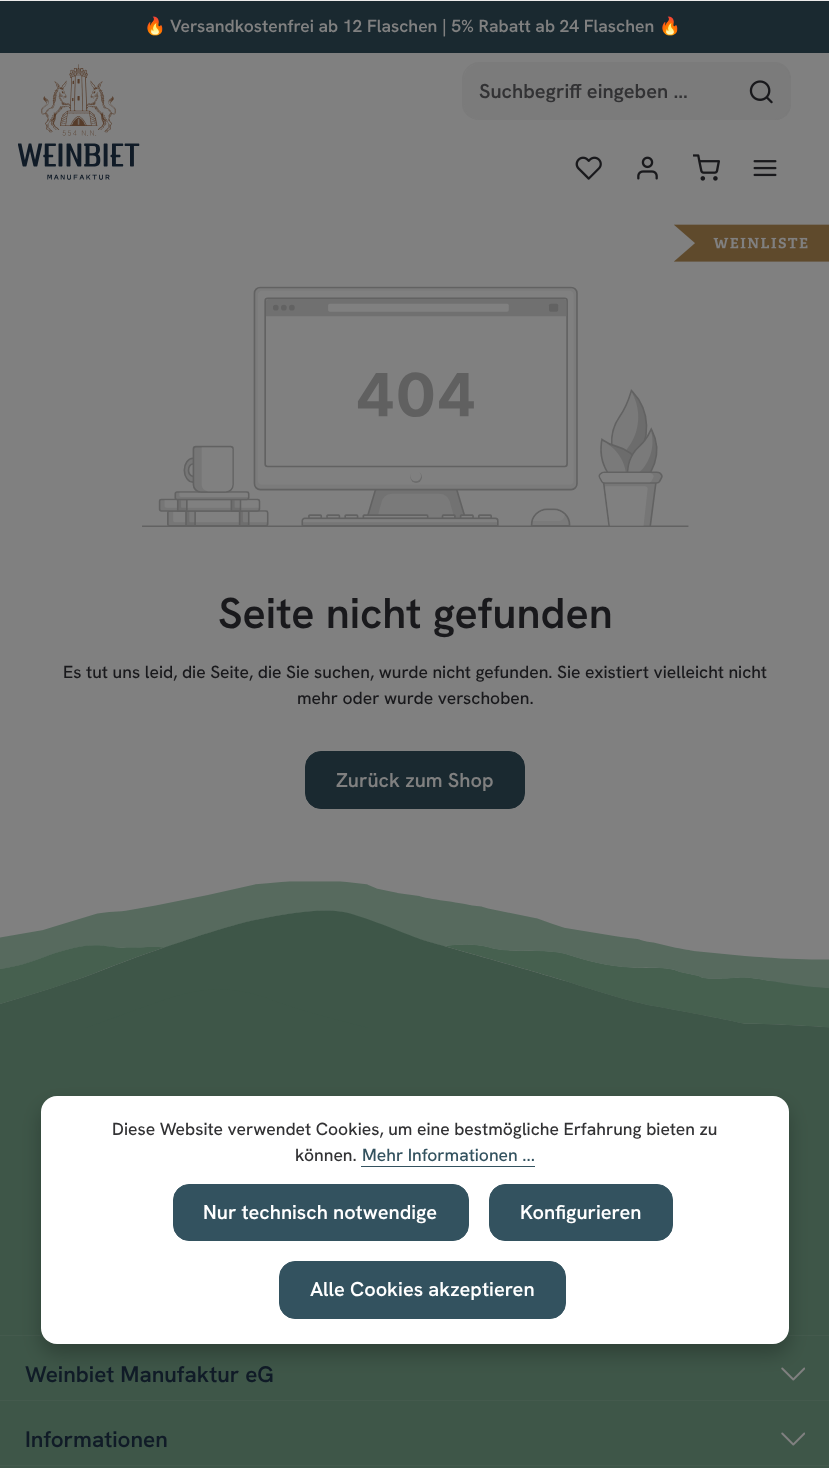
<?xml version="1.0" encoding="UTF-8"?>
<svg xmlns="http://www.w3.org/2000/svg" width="829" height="1468">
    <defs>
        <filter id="blur1" x="-50%" y="-200%" width="200%" height="500%"><feGaussianBlur stdDeviation="10"/></filter>
    </defs>
    <rect width="100%" height="100%" fill="#808080"/>
    <rect x="0" y="1" width="829" height="52" fill="#1A2930"/>
    <text x="144" y="32" font-family="Noto Color Emoji" font-size="17.5" font-weight="700" fill="#808080">🔥</text>
    <text x="170" y="32" font-family="Hanken Grotesk" font-size="17.5" font-weight="600" fill="#808080">Versandkostenfrei ab 12 Flaschen | 5% Rabatt ab 24 Flaschen</text>
    <text x="659" y="32" font-family="Noto Color Emoji" font-size="17.5" font-weight="700" fill="#808080">🔥</text>
    <image x="18" y="64" width="122" height="116" href="img_01.png"/>
    <path d="M 479 64 H 734 V 119 H 479 C 470.5 119 464 112.5 464 104 V 79 C 464 70.5 470.5 64 479 64 Z" fill="#7B7B7B"/>
    <path d="M 479 62 H 734 V 120 H 479 C 470 120 462 113 462 104 V 79 C 462 70 470 62 479 62 Z M 479 64 H 734 V 119 H 479 C 470 119 464 112 464 104 V 79 C 464 70 470 64 479 64 Z" fill="#7B7B7B" fill-rule="evenodd"/>
    <text x="479" y="98" font-family="Hanken Grotesk" font-size="20" font-weight="600" fill="#323234">Suchbegriff eingeben ...</text>
    <path d="M 733 63 H 775 C 784 63 791 70 791 79 V 104 C 791 113 784 120 775 120 H 733 Z" fill="#7B7B7B"/>
    <path d="M 732 62 H 775 C 784 62 791 70 791 79 V 104 C 791 113 784 120 775 120 H 732 Z M 732 64 H 775 C 783 64 790 70 790 79 V 104 C 790 112 783 119 775 119 H 732 Z" fill="#7B7B7B" fill-rule="evenodd"/>
    <image x="749" y="80" width="24" height="24" href="img_02.png"/>
    <image x="575" y="156" width="27" height="24" href="img_03.png"/>
    <image x="637" y="156" width="21" height="24" href="img_04.png"/>
    <image x="693" y="154" width="27" height="27" href="img_05.png"/>
    <image x="753" y="160" width="24" height="17" href="img_06.png"/>
    <image x="674" y="224" width="155" height="38" href="img_07.png"/>
    <image x="142" y="286" width="547" height="241" href="img_08.png"/>
    <text x="218" y="628" font-family="Hanken Grotesk" font-size="43" font-weight="600" fill="#19191C">Seite nicht gefunden</text>
    <text x="63" y="678" font-family="Hanken Grotesk" font-size="17.5" font-weight="500" fill="#19191C">Es tut uns leid, die Seite, die Sie suchen, wurde nicht gefunden. Sie existiert vielleicht nicht</text>
    <text x="297" y="704" font-family="Hanken Grotesk" font-size="17.5" font-weight="500" fill="#19191C">mehr oder wurde verschoben.</text>
    <rect x="305.5" y="751.5" width="219" height="57" rx="15.5" fill="#1A2930" stroke="#1A2930"/>
    <text x="336" y="787" font-family="Hanken Grotesk" font-size="20" font-weight="600" fill="#808080">Zurück zum Shop</text>
    <rect x="0" y="981" width="829" height="487" fill="#3E5648"/>
    <image x="0" y="881" width="829" height="147" href="img_09.png"/>
    <rect x="0" y="1335" width="829" height="1" fill="#445A4D"/>
    <rect x="0" y="1400" width="829" height="1" fill="#445A4D"/>
    <text x="25" y="1382" font-family="Hanken Grotesk" font-size="22.5" font-weight="600" fill="#101B27">Weinbiet Manufaktur eG</text>
    <image x="781" y="1367" width="24" height="14" href="img_10.png"/>
    <rect x="0" y="1465" width="829" height="1" fill="#445A4D"/>
    <text x="25" y="1447" font-family="Hanken Grotesk" font-size="22.5" font-weight="600" fill="#101B27">Informationen</text>
    <image x="781" y="1432" width="24" height="14" href="img_10.png"/>
    <rect x="0" y="0" width="829" height="1" fill="#ECEAEA"/>
    <rect x="41" y="1106" width="748" height="248" rx="16" fill="#000000" fill-opacity="0.25" filter="url(#blur1)"/>
    <rect x="41" y="1096" width="748" height="248" rx="16" fill="#FFFFFF"/>
    <text x="112" y="1135" font-family="Hanken Grotesk" font-size="17.5" font-weight="500" fill="#323234">Diese Website verwendet Cookies, um eine bestmögliche Erfahrung bieten zu</text>
    <text x="295" y="1161" font-family="Hanken Grotesk" font-size="17.5" font-weight="500" fill="#323234">können.</text>
    <text x="362" y="1161" font-family="Hanken Grotesk" font-size="17.5" font-weight="500" fill="#33525F">Mehr Informationen ...</text>
    <rect x="361" y="1166" width="174" height="1" fill="#33525F"/>
    <rect x="173.5" y="1184.5" width="295" height="56" rx="15.5" fill="#33525F" stroke="#33525F"/>
    <text x="203" y="1219" font-family="Hanken Grotesk" font-size="20" font-weight="600" fill="#FFFFFF">Nur technisch notwendige</text>
    <rect x="489.5" y="1184.5" width="183" height="56" rx="15.5" fill="#33525F" stroke="#33525F"/>
    <text x="520" y="1219" font-family="Hanken Grotesk" font-size="20" font-weight="600" fill="#FFFFFF">Konfigurieren</text>
    <rect x="279.5" y="1261.5" width="286" height="57" rx="15.5" fill="#33525F" stroke="#33525F"/>
    <text x="310" y="1296" font-family="Hanken Grotesk" font-size="20" font-weight="600" fill="#FFFFFF">Alle Cookies akzeptieren</text>
</svg>
